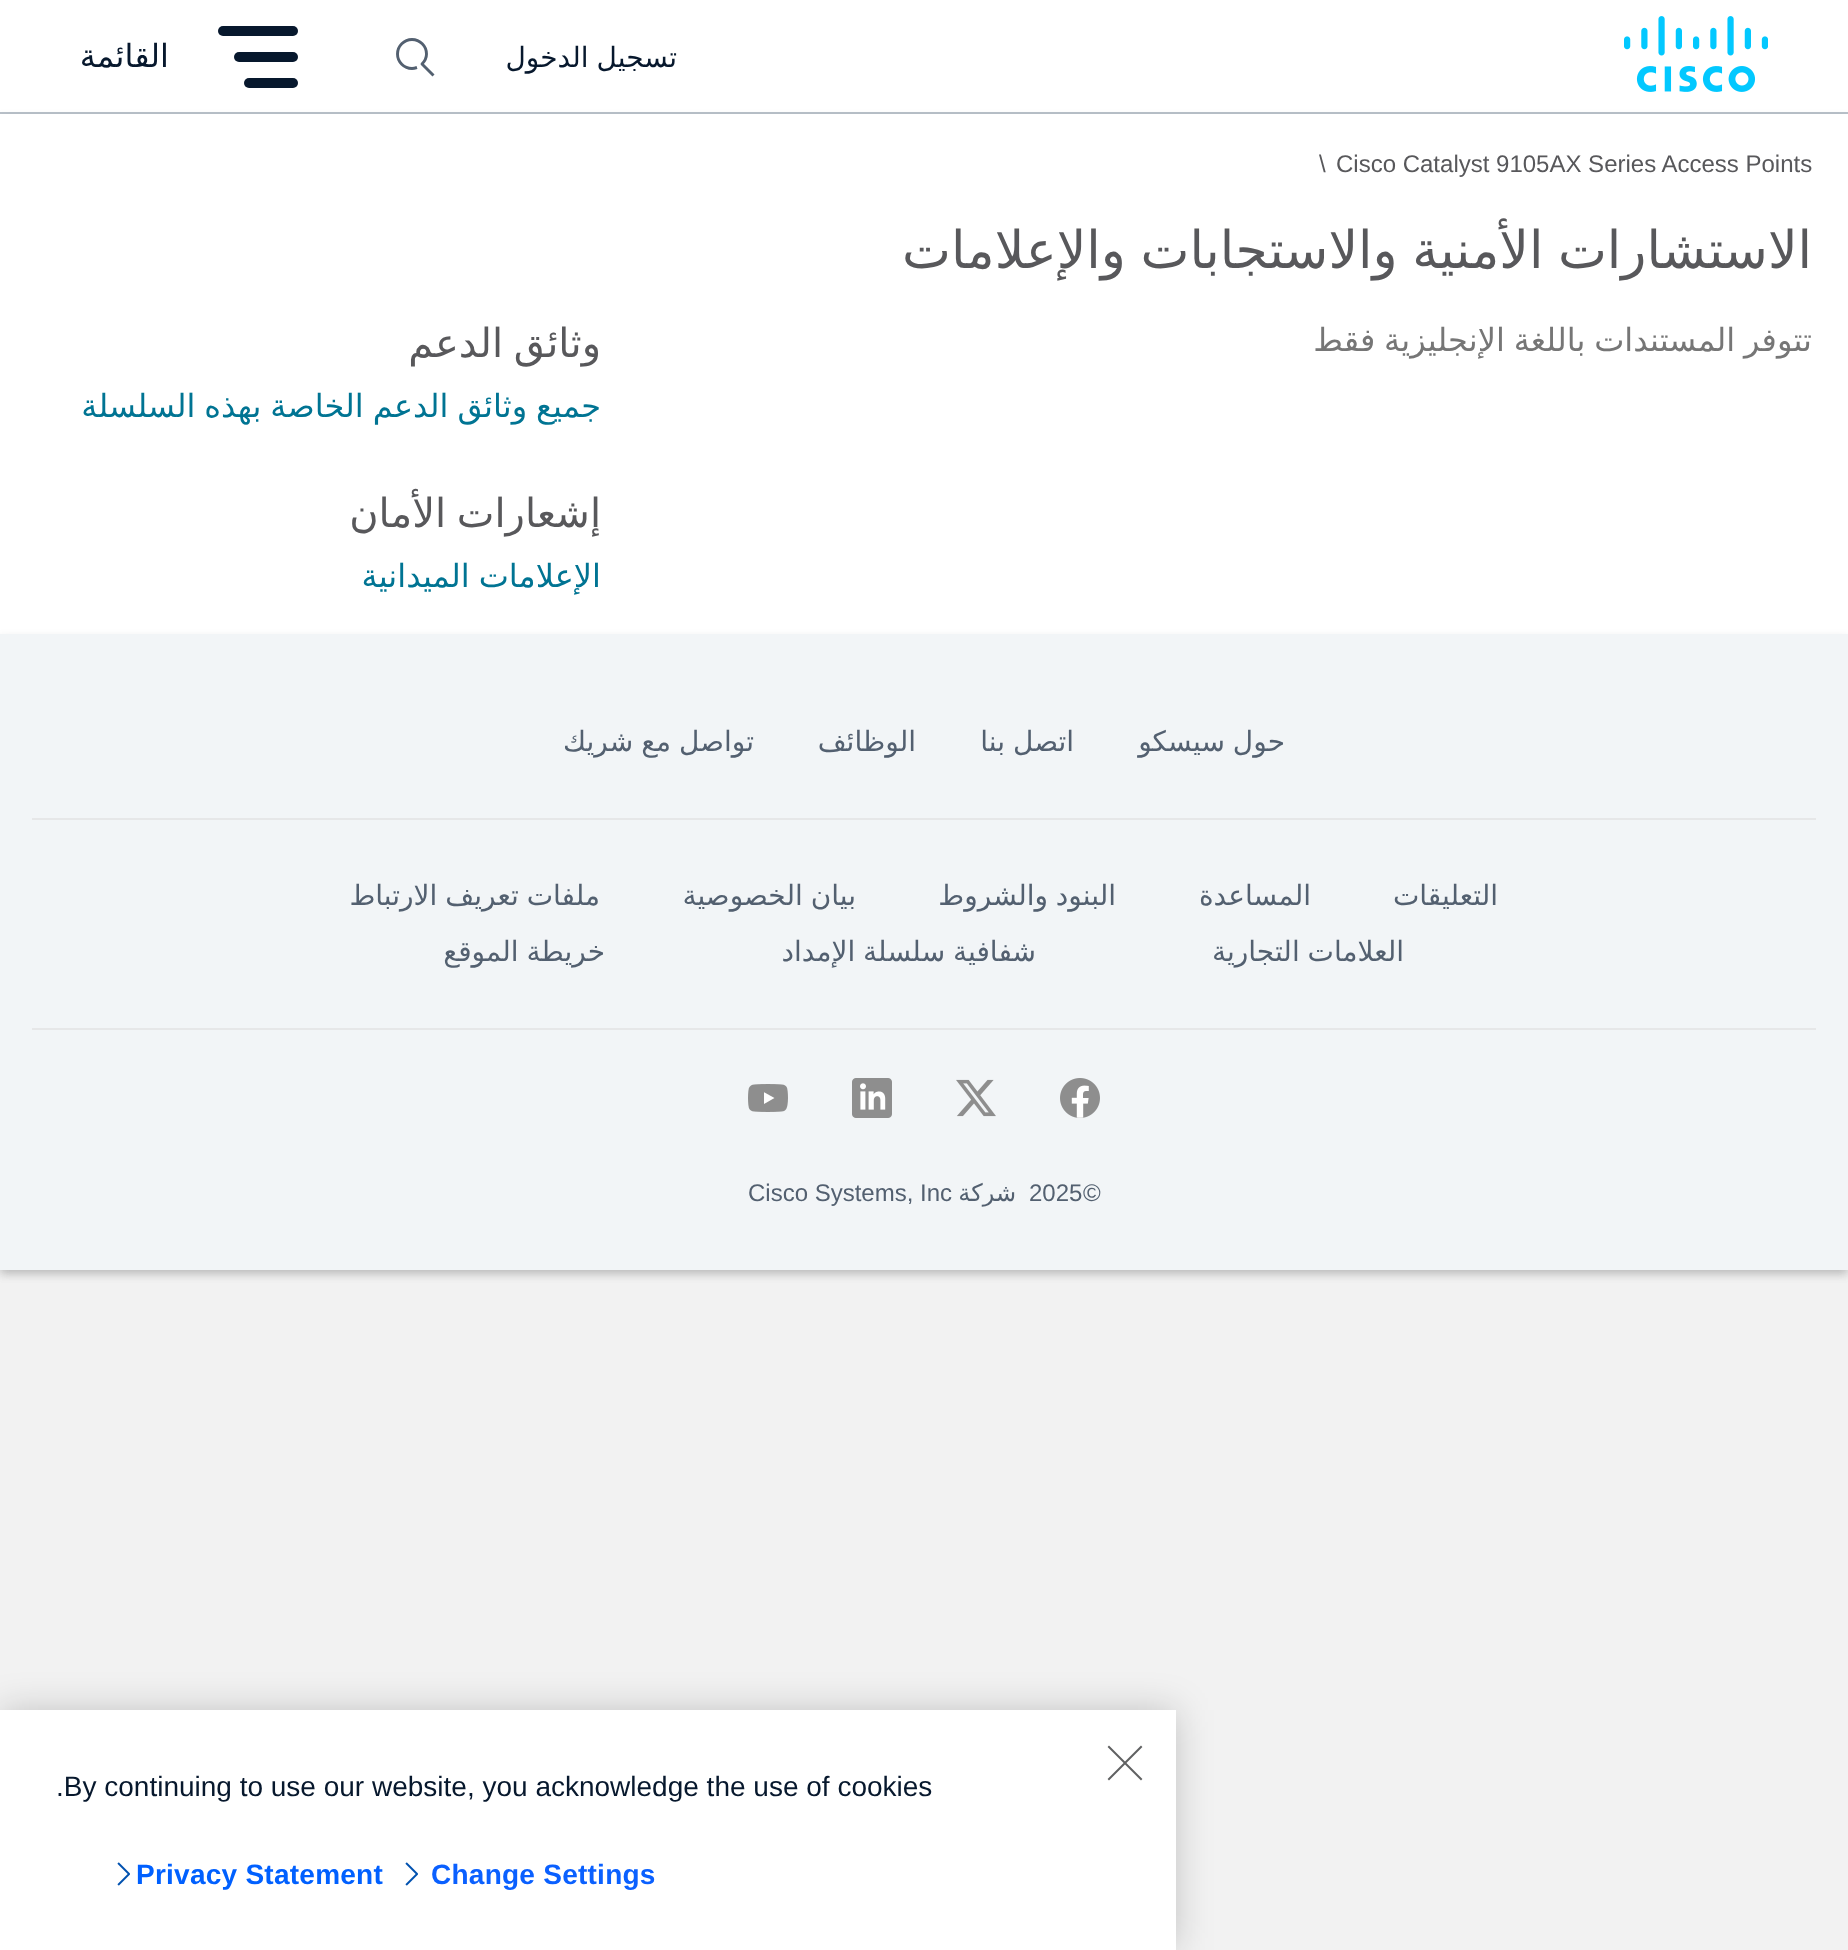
<?xml version="1.0" encoding="UTF-8"?>
<svg xmlns="http://www.w3.org/2000/svg" width="1848" height="1950">
    <defs>
        <filter id="blur1" x="-50%" y="-200%" width="200%" height="500%"><feGaussianBlur stdDeviation="5"/></filter>
        <clipPath id="clip1"><path d="M 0 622 H 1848 V 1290 H 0 Z M 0 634 H 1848 V 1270 H 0 Z" clip-rule="evenodd"/></clipPath>
        <filter id="blur2" x="-50%" y="-200%" width="200%" height="500%"><feGaussianBlur stdDeviation="18"/></filter>
    </defs>
    <rect width="100%" height="100%" fill="#F2F2F2"/>
    <rect x="0" y="0" width="1848" height="112" fill="#FFFFFF"/>
    <rect x="0" y="112" width="1848" height="2" fill="#B9C1C9"/>
    <image x="1624" y="16" width="144" height="76" href="img_01.png"/>
    <text x="677" y="67" word-spacing="-1" font-family="DejaVu Sans" font-size="28" direction="rtl" fill="#07182D">تسجيل الدخول</text>
    <path d="M 417 67.5 C 415.5 68 413.5 68.5 412 68.5 C 404 68.5 397.5 62 397.5 54 C 397.5 46 404 39.5 412 39.5 C 420 39.5 426.5 46 426.5 54 C 426.5 58 424.5 61.5 422 64 L 433.5 75.5" fill="none" stroke="#536070" stroke-width="2.9" stroke-linejoin="round"/>
    <rect x="218" y="26" width="80" height="10" rx="5" fill="#07182D"/>
    <rect x="234" y="52" width="64" height="10" rx="5" fill="#07182D"/>
    <rect x="244" y="78" width="54" height="10" rx="5" fill="#07182D"/>
    <text x="169" y="67" font-family="DejaVu Sans" font-size="32" direction="rtl" fill="#07182D">القائمة</text>
    <rect x="0" y="118" width="1848" height="1156" fill="#000000" fill-opacity="0.12" filter="url(#blur1)"/>
    <rect x="0" y="114" width="1848" height="520" fill="#FFFFFF"/>
    <text x="1336" y="172" font-family="Liberation Sans" font-size="24" fill="#58585B">Cisco Catalyst 9105AX Series Access Points</text>
    <text x="1319" y="172" font-family="Liberation Sans" font-size="24" fill="#58585B">\</text>
    <text x="1812" y="268" word-spacing="-2" font-family="DejaVu Sans" font-size="52" direction="rtl" fill="#58585B">الاستشارات الأمنية والاستجابات والإعلامات</text>
    <text x="1812" y="351" word-spacing="-1.25" font-family="DejaVu Sans" font-size="32" direction="rtl" fill="#767676">تتوفر المستندات باللغة الإنجليزية فقط</text>
    <text x="601" y="357" word-spacing="-2" font-family="DejaVu Sans" font-size="40" direction="rtl" fill="#58585B">وثائق الدعم</text>
    <text x="601" y="417" word-spacing="-1.25" font-family="DejaVu Sans" font-size="32" direction="rtl" fill="#007493">جميع وثائق الدعم الخاصة بهذه السلسلة</text>
    <text x="601" y="527" word-spacing="-2" font-family="DejaVu Sans" font-size="40" direction="rtl" fill="#58585B">إشعارات الأمان</text>
    <text x="601" y="587" word-spacing="-1.25" font-family="DejaVu Sans" font-size="32" direction="rtl" fill="#007493">الإعلامات الميدانية</text>
    <rect x="0" y="634" width="1848" height="636" fill="#F2F5F7"/>
    <g clip-path="url(#clip1)">
        <rect x="0" y="638" width="1848" height="636" fill="#000000" fill-opacity="0.12" filter="url(#blur1)"/>
    </g>
    <text x="1285" y="751" word-spacing="-1" font-family="DejaVu Sans" font-size="28" direction="rtl" fill="#536070">حول سيسكو</text>
    <text x="1074" y="751" word-spacing="-1" font-family="DejaVu Sans" font-size="28" direction="rtl" fill="#536070">اتصل بنا</text>
    <text x="916" y="751" font-family="DejaVu Sans" font-size="28" direction="rtl" fill="#536070">الوظائف</text>
    <text x="754" y="751" word-spacing="-1" font-family="DejaVu Sans" font-size="28" direction="rtl" fill="#536070">تواصل مع شريك</text>
    <rect x="32" y="818" width="1784" height="2" fill="#E6E7E8"/>
    <text x="1498" y="905" font-family="DejaVu Sans" font-size="28" direction="rtl" fill="#536070">التعليقات</text>
    <text x="1311" y="905" font-family="DejaVu Sans" font-size="28" direction="rtl" fill="#536070">المساعدة</text>
    <text x="1116" y="905" word-spacing="-1" font-family="DejaVu Sans" font-size="28" direction="rtl" fill="#536070">البنود والشروط</text>
    <text x="856" y="905" word-spacing="-1" font-family="DejaVu Sans" font-size="28" direction="rtl" fill="#536070">بيان الخصوصية</text>
    <text x="600" y="905" word-spacing="-1" font-family="DejaVu Sans" font-size="28" direction="rtl" fill="#536070">ملفات تعريف الارتباط</text>
    <text x="1404" y="961" word-spacing="-1" font-family="DejaVu Sans" font-size="28" direction="rtl" fill="#536070">العلامات التجارية</text>
    <text x="1036" y="961" word-spacing="-1" font-family="DejaVu Sans" font-size="28" direction="rtl" fill="#536070">شفافية سلسلة الإمداد</text>
    <text x="605" y="961" word-spacing="-1" font-family="DejaVu Sans" font-size="28" direction="rtl" fill="#536070">خريطة الموقع</text>
    <rect x="32" y="1028" width="1784" height="2" fill="#E6E7E8"/>
    <image x="1060" y="1078" width="40" height="40" href="img_02.png"/>
    <image x="956" y="1079" width="40" height="38" href="img_03.png"/>
    <image x="852" y="1078" width="40" height="40" href="img_04.png"/>
    <image x="748" y="1084" width="40" height="28" href="img_05.png"/>
    <text x="1083" y="1201" font-family="Liberation Sans" font-size="24" fill="#536070">©</text>
    <text x="1029" y="1201" font-family="Liberation Sans" font-size="24" fill="#536070">2025</text>
    <text x="1016" y="1201" font-family="DejaVu Sans" font-size="24" direction="rtl" fill="#536070">شركة</text>
    <text x="748" y="1201" font-family="Liberation Sans" font-size="24" fill="#536070">Cisco Systems, Inc</text>
    <rect x="0" y="1710" width="1176" height="240" fill="#000000" fill-opacity="0.2" filter="url(#blur2)"/>
    <rect x="0" y="1710" width="1176" height="240" fill="#FFFFFF"/>
    <image x="1107" y="1745" width="36" height="36" href="img_06.png"/>
    <text x="56" y="1796" font-family="Liberation Sans" font-size="28" fill="#07182D">.By continuing to use our website, you acknowledge the use of cookies</text>
    <text x="431" y="1884" font-family="Liberation Sans" font-size="28" font-weight="700" letter-spacing="0.25" fill="#0A60FF">Change Settings</text>
    <image x="117" y="1862" width="13" height="24" href="img_07.png"/>
    <image x="405" y="1862" width="13" height="24" href="img_07.png"/>
    <text x="136" y="1884" font-family="Liberation Sans" font-size="28" font-weight="700" letter-spacing="0.25" fill="#0060FF">Privacy Statement</text>
</svg>
